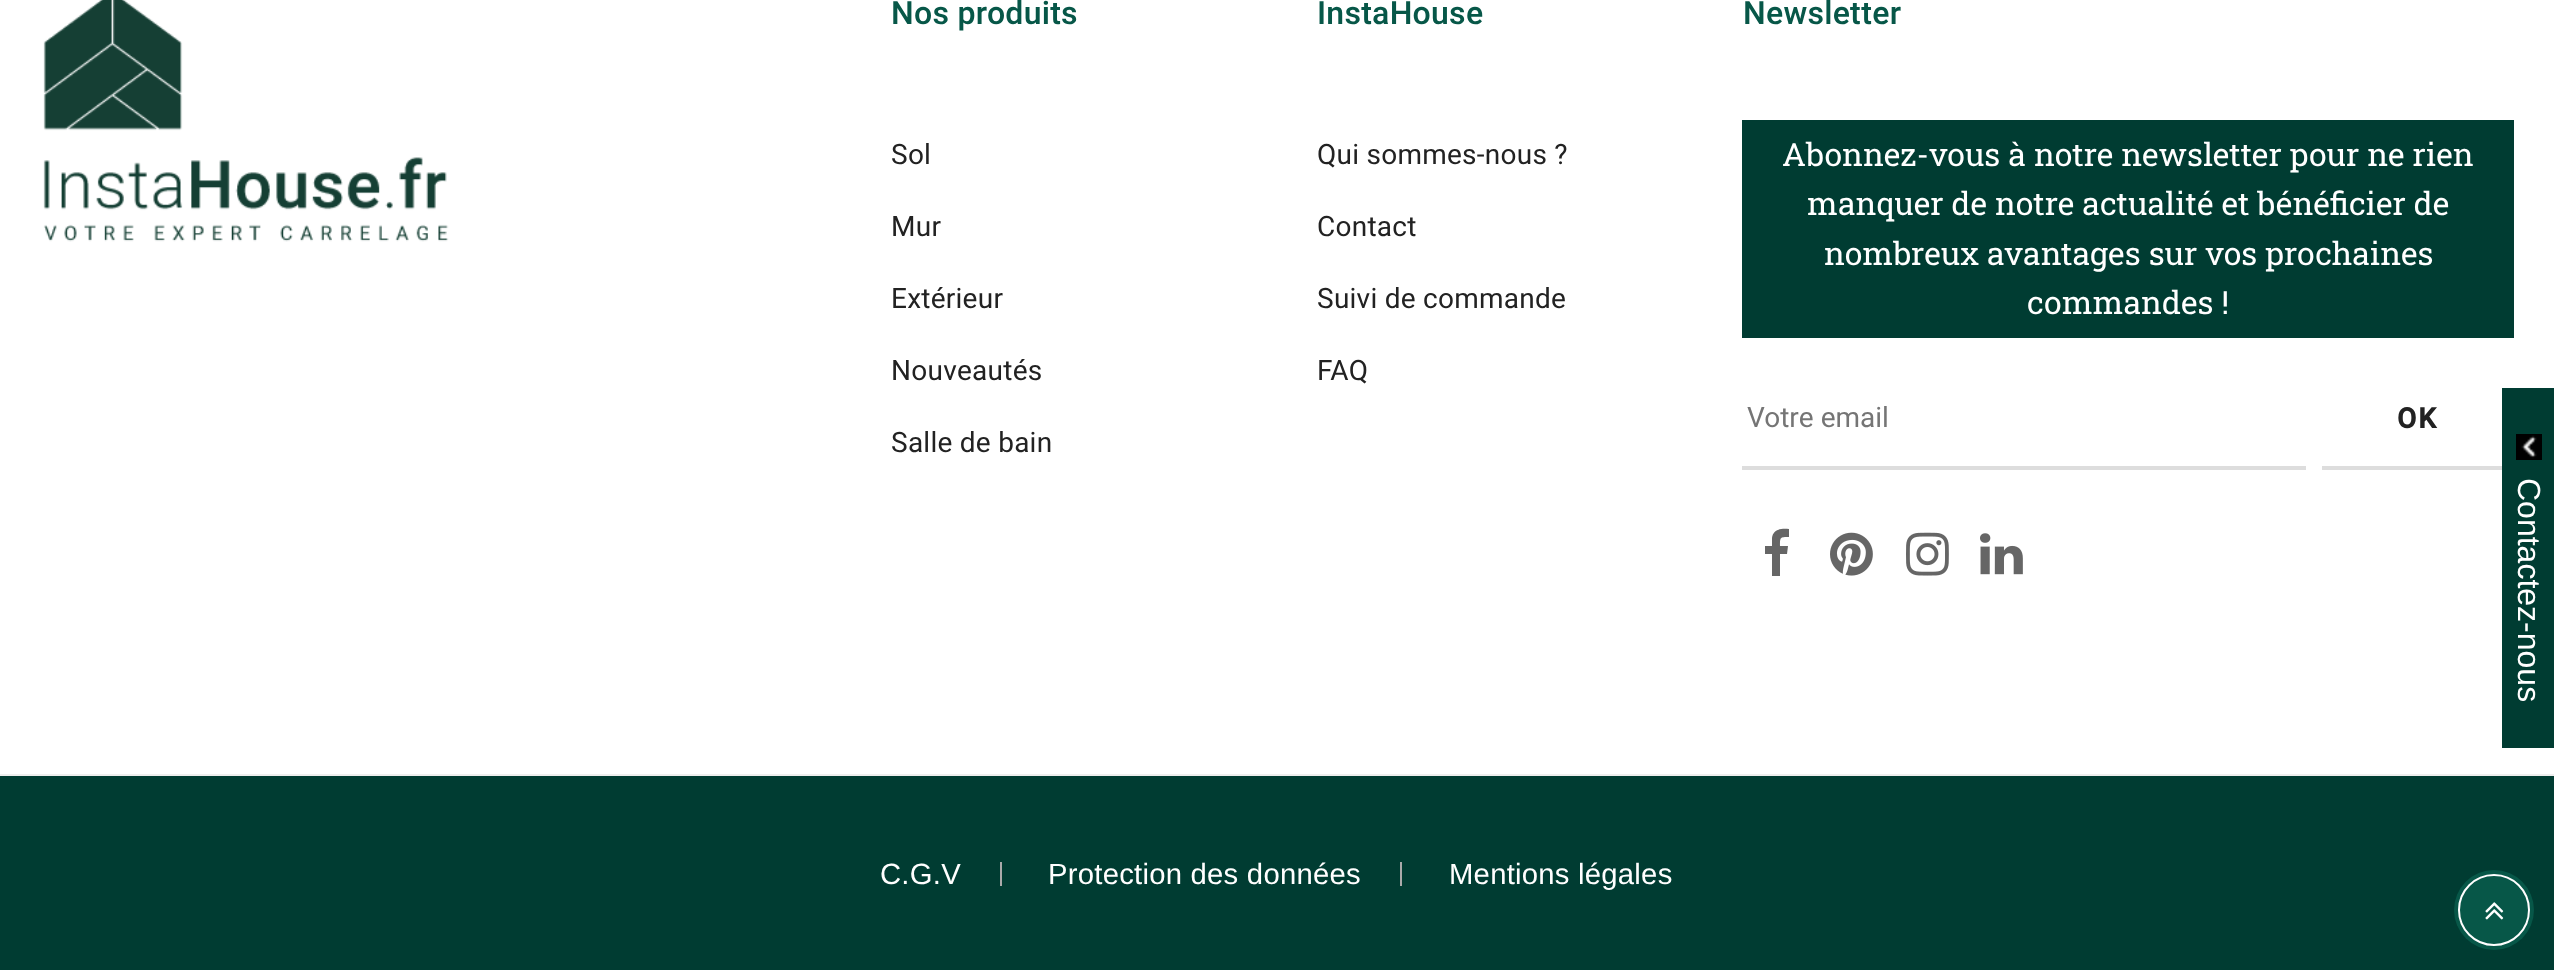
<?xml version="1.0" encoding="UTF-8"?>
<svg xmlns="http://www.w3.org/2000/svg" width="2554" height="970">
    <rect width="100%" height="100%" fill="#FFFFFF"/>
    <image x="43" y="0" width="406" height="242" href="img_01.png"/>
    <text x="891" y="24" font-family="Heebo" font-size="32" font-weight="500" letter-spacing="0.25" fill="#075748">Nos produits</text>
    <text x="891" y="164" font-family="Heebo" font-size="28" letter-spacing="0.25" fill="#222222">Sol</text>
    <text x="891" y="236" font-family="Heebo" font-size="28" letter-spacing="0.25" fill="#222222">Mur</text>
    <text x="891" y="308" font-family="Heebo" font-size="28" letter-spacing="0.25" fill="#222222">Extérieur</text>
    <text x="891" y="380" font-family="Heebo" font-size="28" letter-spacing="0.25" fill="#222222">Nouveautés</text>
    <text x="891" y="452" font-family="Heebo" font-size="28" letter-spacing="0.25" fill="#222222">Salle de bain</text>
    <text x="1317" y="24" font-family="Heebo" font-size="32" font-weight="500" letter-spacing="0.25" fill="#075748">InstaHouse</text>
    <text x="1317" y="164" font-family="Heebo" font-size="28" letter-spacing="0.25" fill="#222222">Qui sommes-nous ?</text>
    <text x="1317" y="236" font-family="Heebo" font-size="28" letter-spacing="0.25" fill="#222222">Contact</text>
    <text x="1317" y="308" font-family="Heebo" font-size="28" letter-spacing="0.25" fill="#222222">Suivi de commande</text>
    <text x="1317" y="380" font-family="Heebo" font-size="28" letter-spacing="0.25" fill="#222222">FAQ</text>
    <text x="1743" y="24" font-family="Heebo" font-size="32" font-weight="500" letter-spacing="0.25" fill="#075748">Newsletter</text>
    <rect x="1742" y="120" width="772" height="218" fill="#003C32"/>
    <text x="1782" y="166" font-family="Roboto Slab" font-size="32" fill="#FFFFFF">Abonnez-vous à notre newsletter pour ne rien</text>
    <text x="1807" y="215" font-family="Roboto Slab" font-size="32" fill="#FFFFFF">manquer de notre actualité et bénéficier de</text>
    <text x="1824" y="265" font-family="Roboto Slab" font-size="32" fill="#FFFFFF">nombreux avantages sur vos prochaines</text>
    <text x="2027" y="314" font-family="Roboto Slab" font-size="32" fill="#FFFFFF">commandes !</text>
    <rect x="1742" y="466" width="564" height="4" fill="#DDDDDD"/>
    <text x="1747" y="427" font-family="Heebo" font-size="28" fill="#757575">Votre email</text>
    <rect x="2322" y="466" width="180" height="4" fill="#DDDDDD"/>
    <text x="2397" y="428" font-family="Heebo" font-size="28" font-weight="700" letter-spacing="2" fill="#222222">OK</text>
    <path d="M 1789 529 V 537 C 1780 537 1780 537 1780 546 H 1788 L 1787 554 H 1780 V 576 H 1772 V 554 H 1765 V 546 H 1772 V 538 C 1773 529 1782 528 1789 529 Z" fill="#666666"/>
    <image x="1830" y="532" width="43" height="44" href="img_02.png"/>
    <image x="1906" y="532" width="43" height="44" href="img_03.png"/>
    <image x="1980" y="533" width="43" height="42" href="img_04.png"/>
    <rect x="2502" y="388" width="52" height="360" fill="#003C32"/>
    <image x="2516" y="434" width="26" height="26" href="img_05.png"/>
    <text x="2518" y="478" transform="rotate(90 2518 478)" font-family="Liberation Sans" font-size="32" fill="#FFFFFF">Contactez-nous</text>
    <rect x="0" y="776" width="2554" height="194" fill="#003C32"/>
    <rect x="0" y="774" width="2554" height="2" fill="#EEEEEE"/>
    <text x="880" y="884" font-family="Liberation Sans" font-size="29.25" letter-spacing="0.25" fill="#FFFFFF">C.G.V</text>
    <rect x="1000" y="862" width="2" height="24" fill="#AAAAAA"/>
    <text x="1048" y="884" font-family="Liberation Sans" font-size="29.25" letter-spacing="0.25" fill="#FFFFFF">Protection des données</text>
    <rect x="1400" y="862" width="2" height="24" fill="#AAAAAA"/>
    <text x="1449" y="884" font-family="Liberation Sans" font-size="29.25" letter-spacing="0.25" fill="#FFFFFF">Mentions légales</text>
    <circle cx="2494" cy="910" r="40" fill="#075748"/>
    <circle cx="2494" cy="910" r="35" fill="none" stroke="#FFFFFF" stroke-width="2"/>
    <image x="2485" y="902" width="19" height="18" href="img_06.png"/>
</svg>
